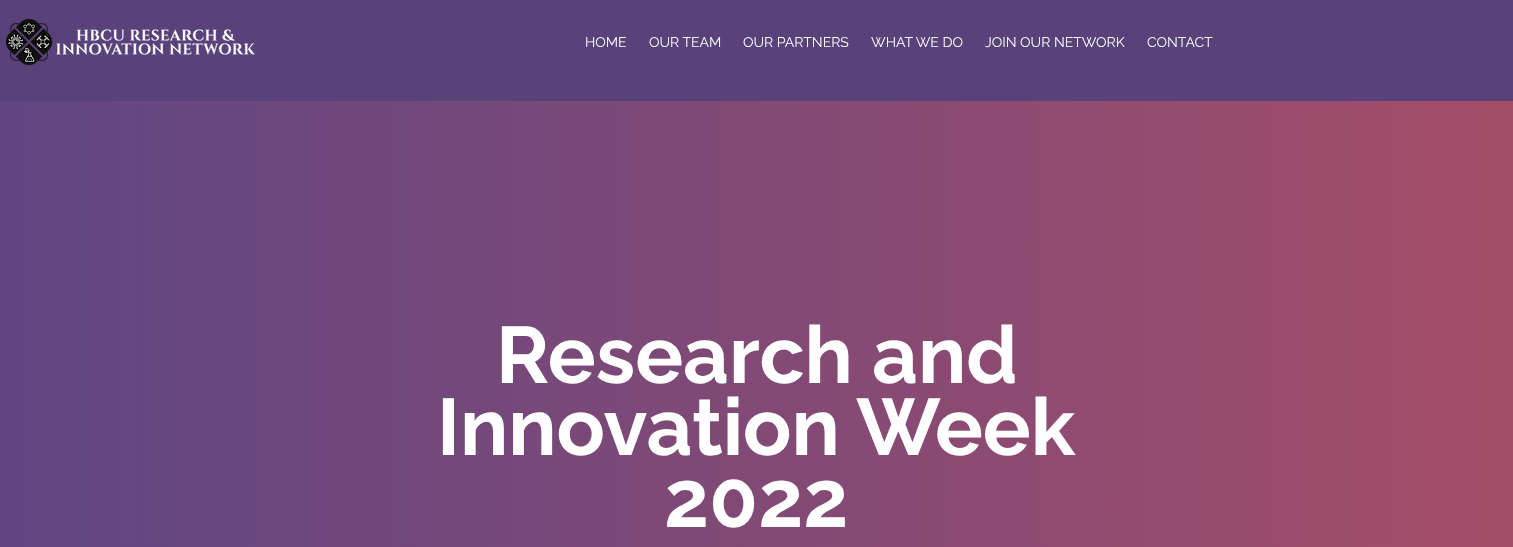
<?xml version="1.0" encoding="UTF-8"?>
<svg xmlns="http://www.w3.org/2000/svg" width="1513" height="547">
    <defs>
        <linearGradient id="g1" gradientUnits="userSpaceOnUse" x1="0" y1="367" x2="1513" y2="367"><stop offset="0" stop-color="#5F4683"/><stop offset="1" stop-color="#A44D68"/></linearGradient>
    </defs>
    <rect width="100%" height="100%" fill="#59427A"/>
    <image x="6" y="19" width="249" height="46" href="img_01.png"/>
    <text x="585" y="47" font-family="Raleway" font-size="14" fill="#FFFFFF">HOME</text>
    <text x="649" y="47" font-family="Raleway" font-size="14" fill="#FFFFFF">OUR TEAM</text>
    <text x="743" y="47" font-family="Raleway" font-size="14" fill="#FFFFFF">OUR PARTNERS</text>
    <text x="871" y="47" font-family="Raleway" font-size="14" fill="#FFFFFF">WHAT WE DO</text>
    <text x="985" y="47" font-family="Raleway" font-size="14" fill="#FFFFFF">JOIN OUR NETWORK</text>
    <text x="1147" y="47" font-family="Raleway" font-size="14" fill="#FFFFFF">CONTACT</text>
    <rect x="0" y="101" width="1513" height="446" fill="url(#g1)"/>
    <text x="496" y="383" font-family="Raleway" font-size="80" font-weight="700" fill="#FFFFFF">Research and</text>
    <text x="437" y="455" font-family="Raleway" font-size="80" font-weight="700" fill="#FFFFFF">Innovation Week</text>
    <text x="664" y="527" font-family="Raleway" font-size="80" font-weight="700" fill="#FFFFFF">2022</text>
</svg>
